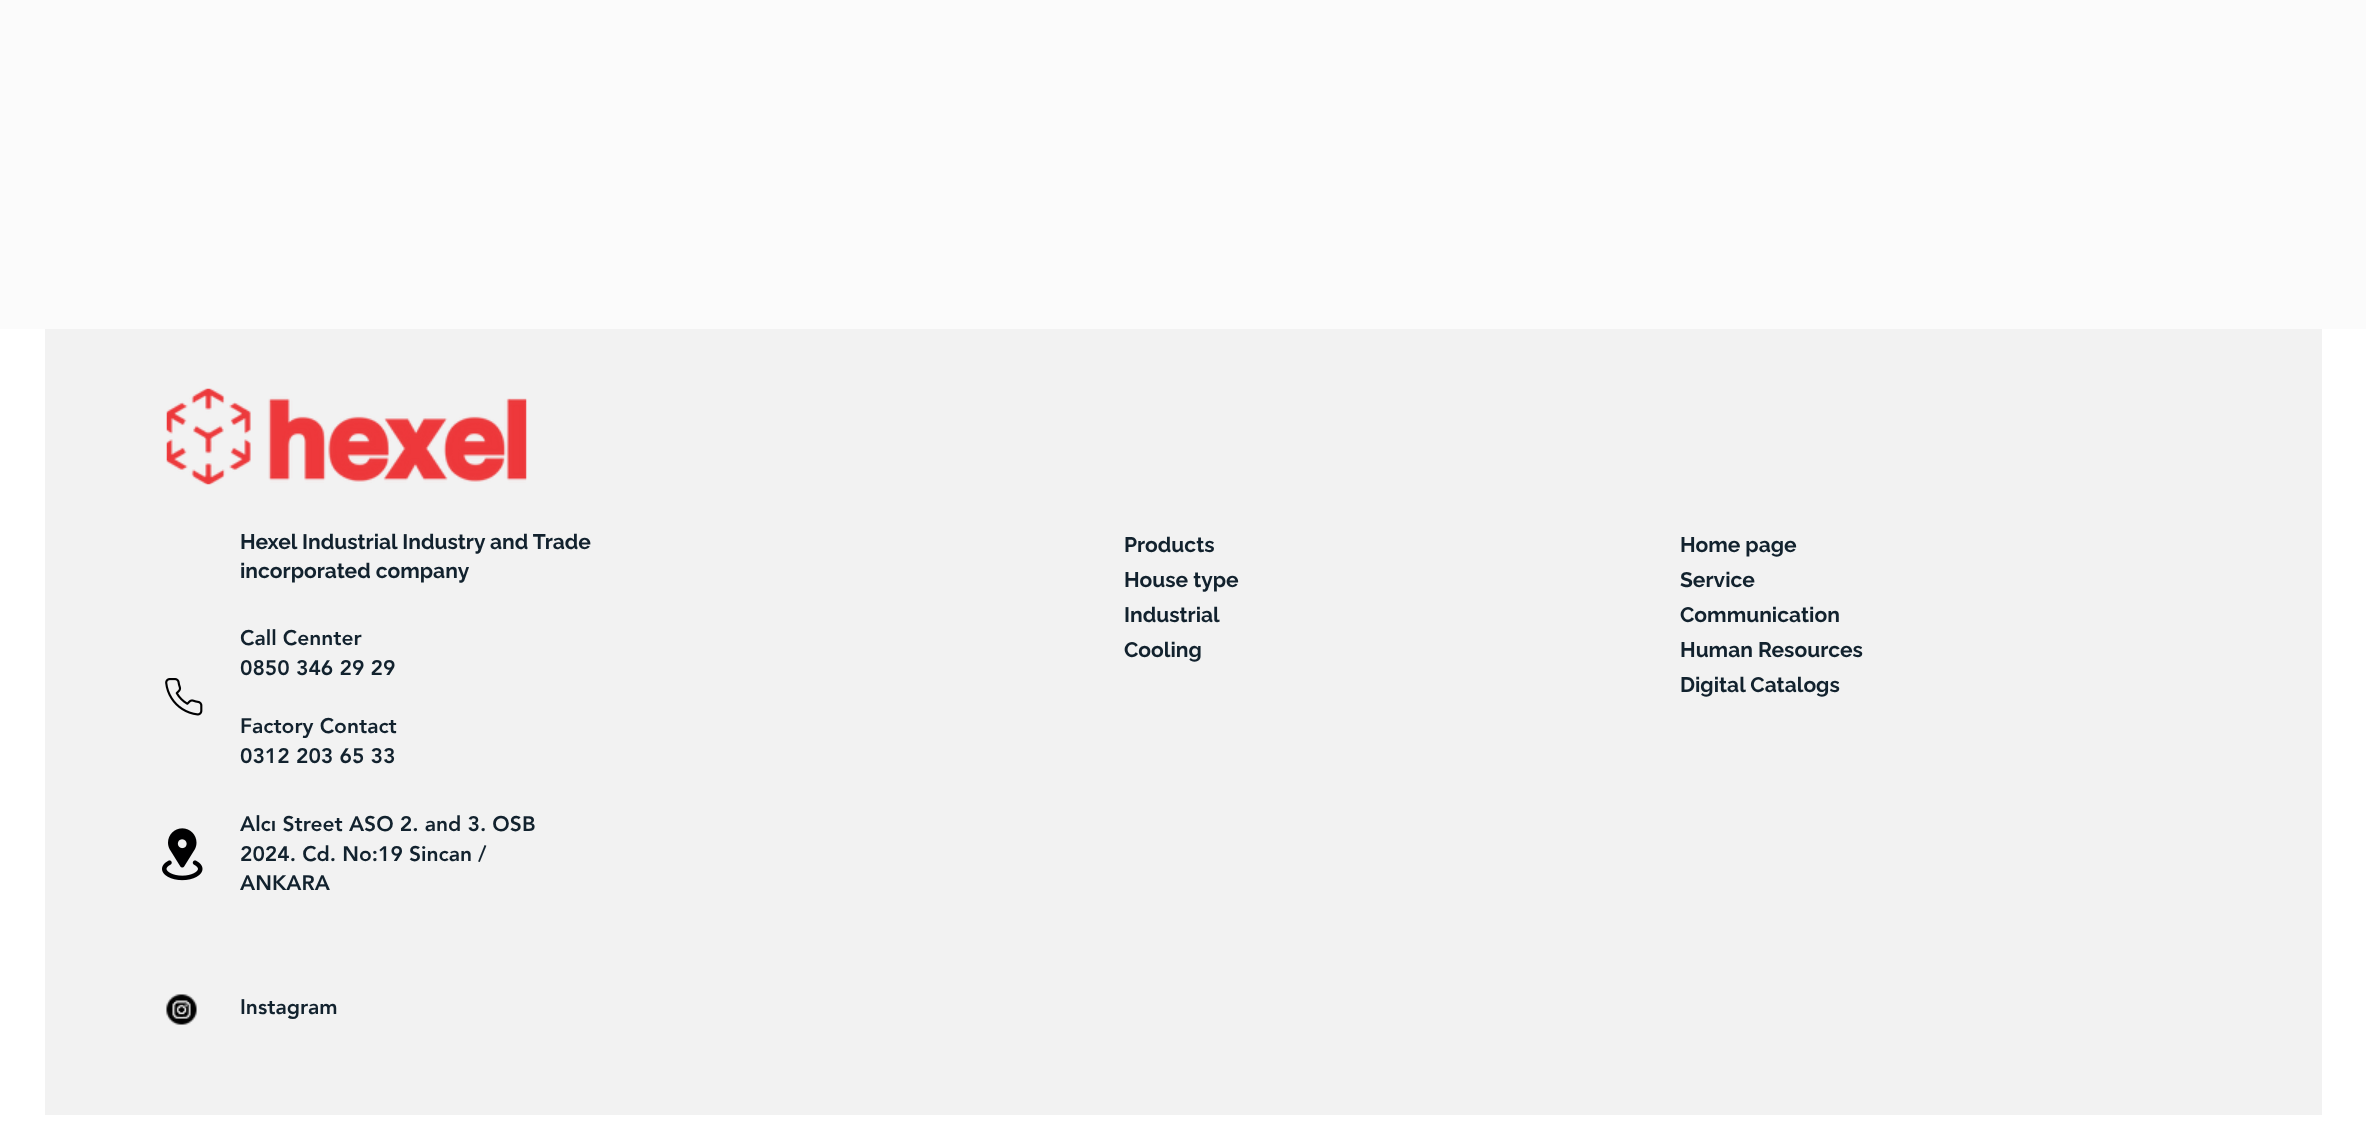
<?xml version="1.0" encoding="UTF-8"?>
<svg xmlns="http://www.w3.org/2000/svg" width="2366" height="1135">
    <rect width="100%" height="100%" fill="#FFFFFF"/>
    <rect x="0" y="0" width="2366" height="329" fill="#FBFBFB"/>
    <rect x="45" y="329" width="2277" height="786" fill="#F2F2F2"/>
    <image x="166" y="388" width="361" height="97" href="img_01.png"/>
    <text font-family="Raleway" font-size="21" font-weight="700" fill="#12222E">
        <tspan x="240" y="549">Hexel Industrial Industry and Trade</tspan>
        <tspan x="240" y="578">incorporated company</tspan>
    </text>
    <image x="165" y="678" width="38" height="38" href="img_02.png"/>
    <text font-family="'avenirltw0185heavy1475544'" font-size="21" font-weight="900" fill="#12222E">
        <tspan x="240" y="645">Call Cennter</tspan>
        <tspan x="240" y="675">0850 346 29 29</tspan>
    </text>
    <text font-family="'avenirltw0185heavy1475544'" font-size="21" font-weight="900" fill="#12222E">
        <tspan x="240" y="733">Factory Contact</tspan>
        <tspan x="240" y="763">0312 203 65 33</tspan>
    </text>
    <image x="162" y="828" width="41" height="53" href="img_03.png"/>
    <text font-family="'avenirltw0185heavy1475544'" font-size="21" font-weight="900" fill="#12222E">
        <tspan x="240" y="831">Alcı Street ASO 2. and 3. OSB</tspan>
        <tspan x="240" y="861">2024. Cd. No:19 Sincan /</tspan>
        <tspan x="240" y="890">ANKARA</tspan>
    </text>
    <image x="166" y="994" width="31" height="31" href="img_04.png"/>
    <text x="240" y="1014" font-family="'avenirltw0185heavy1475544'" font-size="21" font-weight="900" fill="#12222E">Instagram</text>
    <text font-family="Raleway" font-size="21" font-weight="700" fill="#12222E">
        <tspan x="1124" y="552">Products</tspan>
        <tspan x="1124" y="587">House type</tspan>
        <tspan x="1124" y="622">Industrial</tspan>
        <tspan x="1124" y="657">Cooling</tspan>
    </text>
    <text font-family="Raleway" font-size="21" font-weight="700" fill="#12222E">
        <tspan x="1680" y="552">Home page</tspan>
        <tspan x="1680" y="587">Service</tspan>
        <tspan x="1680" y="622">Communication</tspan>
        <tspan x="1680" y="657">Human Resources</tspan>
        <tspan x="1680" y="692">Digital Catalogs</tspan>
    </text>
</svg>
